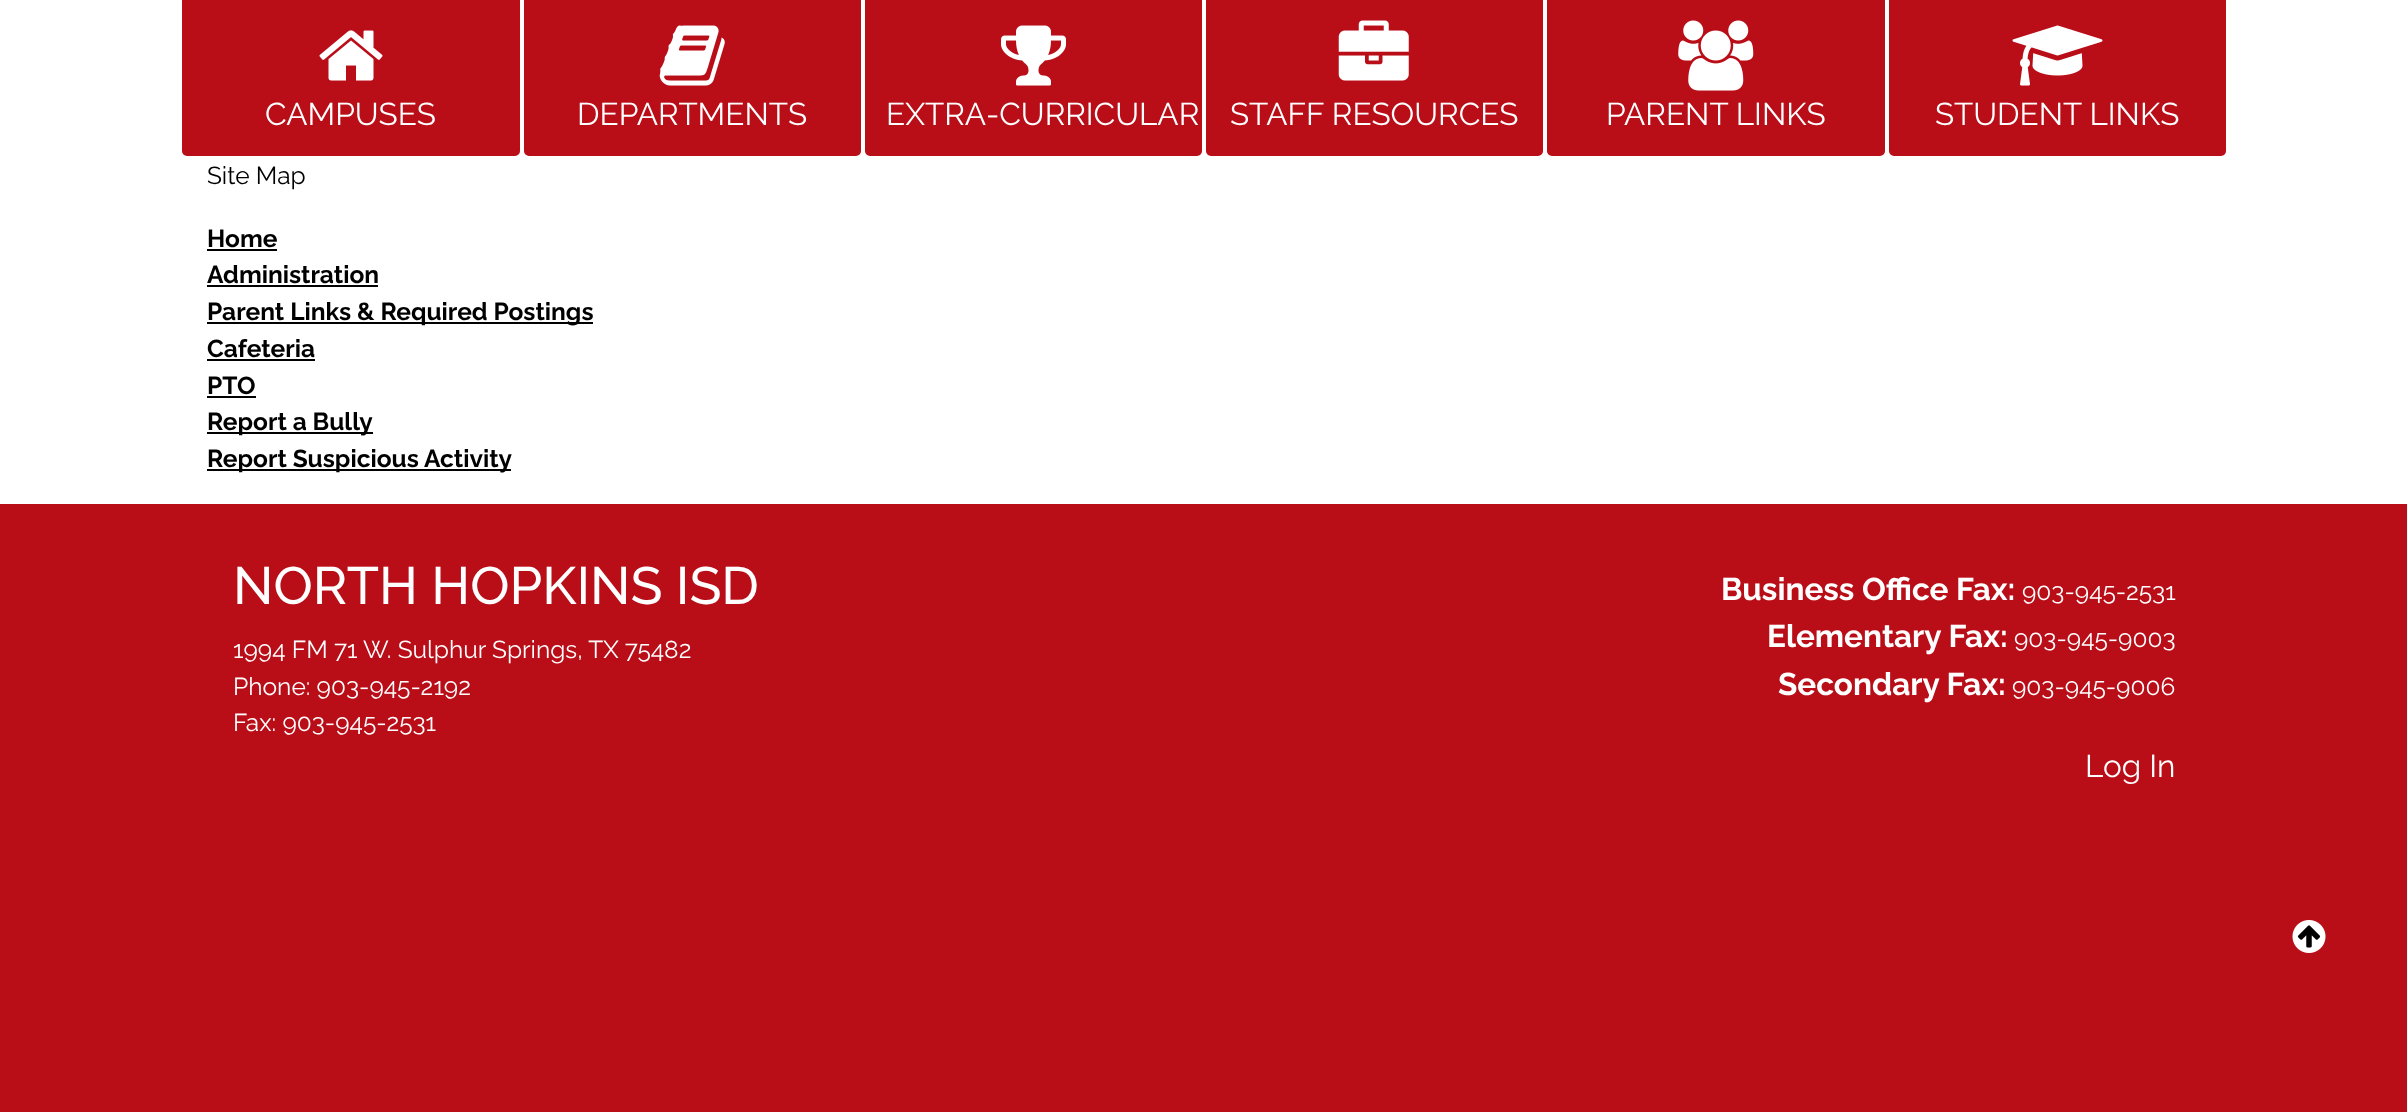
<?xml version="1.0" encoding="UTF-8"?>
<svg xmlns="http://www.w3.org/2000/svg" width="2407" height="1112">
    <defs>
        <radialGradient id="g1" gradientUnits="userSpaceOnUse" cx="0" cy="0" r="1" gradientTransform="matrix(24 0 0 27 2309 936)"><stop offset="0.5" stop-color="#000000"/><stop offset="0.5" stop-color="#B90D17"/></radialGradient>
    </defs>
    <rect width="100%" height="100%" fill="#FFFFFF"/>
    <rect x="181" y="-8" width="340" height="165" rx="6" fill="#B90D17" stroke="#FFFFFF" stroke-width="2"/>
    <image x="319" y="30" width="64" height="51" href="img_01.png"/>
    <text x="265" y="125" font-family="Raleway" font-size="31.5" fill="#FFFFFF">CAMPUSES</text>
    <rect x="523" y="-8" width="339" height="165" rx="6" fill="#B90D17" stroke="#FFFFFF" stroke-width="2"/>
    <image x="659" y="25" width="66" height="61" href="img_02.png"/>
    <text x="577" y="125" font-family="Raleway" font-size="31.5" fill="#FFFFFF">DEPARTMENTS</text>
    <rect x="864" y="-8" width="339" height="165" rx="6" fill="#B90D17" stroke="#FFFFFF" stroke-width="2"/>
    <image x="1001" y="25" width="65" height="61" href="img_03.png"/>
    <text x="886" y="125" font-family="Raleway" font-size="31.5" fill="#FFFFFF">EXTRA-CURRICULAR</text>
    <rect x="1205" y="-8" width="339" height="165" rx="6" fill="#B90D17" stroke="#FFFFFF" stroke-width="2"/>
    <image x="1338" y="20" width="71" height="61" href="img_04.png"/>
    <text x="1230" y="125" font-family="Raleway" font-size="31.5" fill="#FFFFFF">STAFF RESOURCES</text>
    <rect x="1546" y="-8" width="340" height="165" rx="6" fill="#B90D17" stroke="#FFFFFF" stroke-width="2"/>
    <image x="1678" y="20" width="76" height="71" href="img_05.png"/>
    <text x="1606" y="125" font-family="Raleway" font-size="31.5" fill="#FFFFFF">PARENT LINKS</text>
    <rect x="1888" y="-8" width="339" height="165" rx="6" fill="#B90D17" stroke="#FFFFFF" stroke-width="2"/>
    <image x="2012" y="25" width="91" height="61" href="img_06.png"/>
    <text x="1935" y="125" font-family="Raleway" font-size="31.5" fill="#FFFFFF">STUDENT LINKS</text>
    <text x="207" y="184" font-family="Raleway" font-size="24.5" fill="#000000">Site Map</text>
    <text x="207" y="247" font-family="Raleway" font-size="24.5" font-weight="700" fill="#000000">Home</text>
    <rect x="207" y="249" width="70" height="2" fill="#000000"/>
    <text x="207" y="283" font-family="Raleway" font-size="24.5" font-weight="700" fill="#000000">Administration</text>
    <rect x="207" y="285" width="171" height="2" fill="#000000"/>
    <rect x="207" y="322" width="386" height="2" fill="#000000"/>
    <text font-family="Raleway" font-size="24.5" font-weight="700" fill="#000000">
        <tspan x="207" y="320">Parent Links &amp; Required Postings</tspan>
        <tspan x="207" y="357">Cafeteria</tspan>
    </text>
    <rect x="207" y="359" width="108" height="2" fill="#000000"/>
    <text x="207" y="394" font-family="Raleway" font-size="24.5" font-weight="700" fill="#000000">PTO</text>
    <rect x="207" y="396" width="49" height="2" fill="#000000"/>
    <rect x="207" y="432" width="166" height="2" fill="#000000"/>
    <text x="207" y="430" font-family="Raleway" font-size="24.5" font-weight="700" fill="#000000">Report a Bully</text>
    <rect x="207" y="469" width="304" height="2" fill="#000000"/>
    <text x="207" y="467" font-family="Raleway" font-size="24.5" font-weight="700" fill="#000000">Report Suspicious Activity</text>
    <rect x="0" y="504" width="2407" height="608" fill="#B90D17"/>
    <text x="233" y="604" font-family="Raleway" font-size="52.5" font-weight="500" fill="#FFFFFF">NORTH HOPKINS ISD</text>
    <text font-family="Raleway" font-size="24.5" fill="#FFFFFF">
        <tspan x="233" y="658">1994 FM 71 W. Sulphur Springs, TX 75482</tspan>
        <tspan x="233" y="695">Phone: 903-945-2192</tspan>
        <tspan x="233" y="731">Fax: 903-945-2531</tspan>
    </text>
    <text x="1721" y="600" font-family="Raleway" font-size="31.5" font-weight="700" fill="#FFFFFF">Business Office Fax:</text>
    <text x="2022" y="600" font-family="Raleway" font-size="24.5" fill="#FFFFFF">903-945-2531</text>
    <text x="1767" y="647" font-family="Raleway" font-size="31.5" font-weight="700" fill="#FFFFFF">Elementary Fax:</text>
    <text x="2014" y="647" font-family="Raleway" font-size="24.5" fill="#FFFFFF">903-945-9003</text>
    <text x="1778" y="695" font-family="Raleway" font-size="31.5" font-weight="700" fill="#FFFFFF">Secondary Fax:</text>
    <text x="2012" y="695" font-family="Raleway" font-size="24.5" fill="#FFFFFF">903-945-9006</text>
    <text x="2085" y="777" font-family="Raleway" font-size="31.5" fill="#FFFFFF">Log In</text>
    <rect x="2297" y="923" width="24" height="26" fill="url(#g1)"/>
    <image x="2292" y="920" width="34" height="33" href="img_07.png"/>
</svg>
